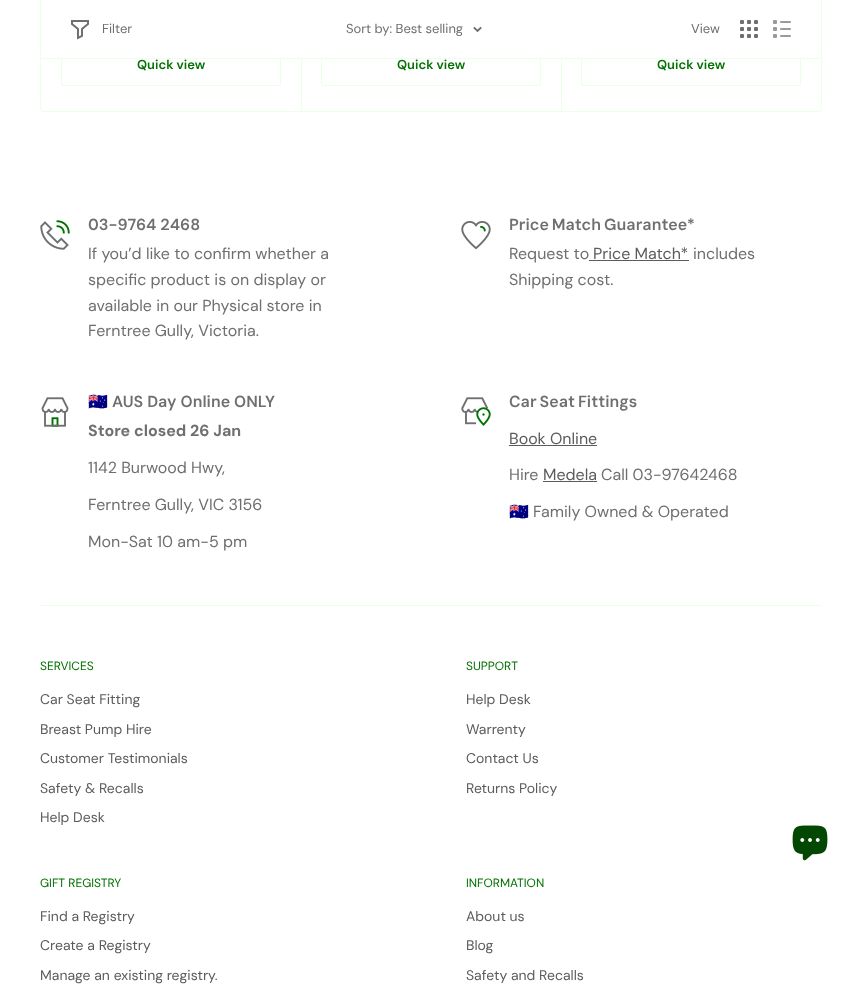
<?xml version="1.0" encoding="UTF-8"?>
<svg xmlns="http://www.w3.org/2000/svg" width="862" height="995">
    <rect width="100%" height="100%" fill="#FFFFFF"/>
    <rect x="40.5" y="-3.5" width="781" height="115" rx="2.5" fill="none" stroke="#EBFFE9"/>
    <rect x="61.5" y="44.5" width="219" height="41" rx="1.5" fill="none" stroke="#EBFFE9"/>
    <rect x="321.5" y="44.5" width="219" height="41" rx="1.5" fill="none" stroke="#EBFFE9"/>
    <rect x="581.5" y="44.5" width="219" height="41" rx="1.5" fill="none" stroke="#EBFFE9"/>
    <rect x="41" y="58" width="780" height="1" fill="#EBFFE9"/>
    <rect x="61" y="44" width="740" height="14" fill="#FFFFFF"/>
    <path d="M 88 24 L 82 29 V 36 L 78 38 V 29 L 72 24 V 21 H 88 Z" fill="none" stroke="#6D6F70" stroke-width="2" stroke-linecap="square"/>
    <text x="102" y="33" font-family="DM Sans" font-size="13" fill="#6D6F70">Filter</text>
    <text x="346" y="33" font-family="DM Sans" font-size="13" fill="#6D6F70">Sort by: Best selling</text>
    <path d="M 480.5 28 L 477.5 31 L 474.5 28" fill="none" stroke="#6D6F70" stroke-width="1.9" stroke-linecap="square"/>
    <text x="691" y="33" font-family="DM Sans" font-size="13" fill="#6D6F70">View</text>
    <image x="740" y="20" width="18" height="18" href="img_01.png"/>
    <image x="773" y="20" width="18" height="18" href="img_02.png"/>
    <text x="137" y="69" font-family="'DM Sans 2'" font-size="13" font-weight="600" fill="#017101">Quick view</text>
    <rect x="301" y="59" width="1" height="52" fill="#EBFFE9"/>
    <text x="397" y="69" font-family="'DM Sans 2'" font-size="13" font-weight="600" fill="#017101">Quick view</text>
    <rect x="561" y="59" width="1" height="52" fill="#EBFFE9"/>
    <text x="657" y="69" font-family="'DM Sans 2'" font-size="13" font-weight="600" fill="#017101">Quick view</text>
    <image x="40" y="220" width="30" height="30" href="img_03.png"/>
    <text x="88" y="230" font-family="DM Sans" font-size="16" font-weight="600" fill="#6D6F70">03-9764 2468</text>
    <text font-family="DM Sans" font-size="16" fill="#6D6F70">
        <tspan x="88" y="259">If you’d like to confirm whether a</tspan>
        <tspan x="88" y="285">specific product is on display or</tspan>
        <tspan x="88" y="311">available in our Physical store in</tspan>
        <tspan x="88" y="336">Ferntree Gully, Victoria.</tspan>
    </text>
    <image x="461" y="220" width="30" height="30" href="img_04.png"/>
    <text x="509" y="230" word-spacing="-1" font-family="DM Sans" font-size="16" font-weight="600" fill="#6D6F70">Price Match Guarantee*</text>
    <text x="509" y="259" font-family="DM Sans" font-size="16" fill="#6D6F70">Request to</text>
    <text x="593" y="259" font-family="DM Sans" font-size="16" fill="#5A5C5B">Price Match*</text>
    <rect x="589" y="260" width="100" height="1" fill="#5A5C5B"/>
    <text x="693" y="259" font-family="DM Sans" font-size="16" fill="#6D6F70">includes</text>
    <text x="509" y="285" font-family="DM Sans" font-size="16" fill="#6D6F70">Shipping cost.</text>
    <image x="41" y="397" width="28" height="30" href="img_05.png"/>
    <text x="88" y="407" font-family="Noto Color Emoji" font-size="16" font-weight="700" fill="#6D6F70">🇦🇺</text>
    <text x="112" y="407" font-family="DM Sans" font-size="16" font-weight="600" fill="#6D6F70">AUS Day Online ONLY</text>
    <text x="88" y="436" font-family="DM Sans" font-size="16" font-weight="700" fill="#6D6F70">Store closed 26 Jan</text>
    <text x="88" y="473" font-family="DM Sans" font-size="16" fill="#6D6F70">1142 Burwood Hwy,</text>
    <text x="88" y="510" font-family="DM Sans" font-size="16" fill="#6D6F70">Ferntree Gully, VIC 3156</text>
    <text x="88" y="547" font-family="DM Sans" font-size="16" fill="#6D6F70">Mon-Sat 10 am-5 pm</text>
    <image x="461" y="397" width="30" height="29" href="img_06.png"/>
    <text x="509" y="407" word-spacing="-1" font-family="DM Sans" font-size="16" font-weight="600" fill="#6D6F70">Car Seat Fittings</text>
    <text x="509" y="444" font-family="DM Sans" font-size="16" fill="#5A5C5B">Book Online</text>
    <rect x="509" y="445" width="88" height="1" fill="#5A5C5B"/>
    <text x="509" y="480" font-family="DM Sans" font-size="16" fill="#6D6F70">Hire</text>
    <text x="543" y="480" font-family="DM Sans" font-size="16" fill="#5A5C5B">Medela</text>
    <rect x="543" y="481" width="54" height="1" fill="#5A5C5B"/>
    <text x="601" y="480" font-family="DM Sans" font-size="16" fill="#6D6F70">Call 03-97642468</text>
    <text x="509" y="517" font-family="Noto Color Emoji" font-size="16" fill="#6D6F70">🇦🇺</text>
    <text x="533" y="517" font-family="DM Sans" font-size="16" fill="#6D6F70">Family Owned &amp; Operated</text>
    <rect x="40" y="605" width="782" height="1" fill="#EBFFE9"/>
    <text x="40" y="670" font-family="DM Sans" font-size="12" fill="#017101">SERVICES</text>
    <text x="40" y="704" font-family="DM Sans" font-size="14" fill="#5A5C5B">Car Seat Fitting</text>
    <text x="40" y="734" font-family="DM Sans" font-size="14" fill="#5A5C5B">Breast Pump Hire</text>
    <text x="40" y="763" font-family="DM Sans" font-size="14" fill="#5A5C5B">Customer Testimonials</text>
    <text x="40" y="793" font-family="DM Sans" font-size="14" fill="#5A5C5B">Safety &amp; Recalls</text>
    <text x="40" y="822" font-family="DM Sans" font-size="14" fill="#5A5C5B">Help Desk</text>
    <text x="466" y="670" font-family="DM Sans" font-size="12" fill="#017101">SUPPORT</text>
    <text x="466" y="704" font-family="DM Sans" font-size="14" fill="#5A5C5B">Help Desk</text>
    <text x="466" y="734" font-family="DM Sans" font-size="14" fill="#5A5C5B">Warrenty</text>
    <text x="466" y="763" font-family="DM Sans" font-size="14" fill="#5A5C5B">Contact Us</text>
    <text x="466" y="793" font-family="DM Sans" font-size="14" fill="#5A5C5B">Returns Policy</text>
    <text x="40" y="887" font-family="DM Sans" font-size="12" fill="#017101">GIFT REGISTRY</text>
    <text x="40" y="921" font-family="DM Sans" font-size="14" fill="#5A5C5B">Find a Registry</text>
    <text x="40" y="950" font-family="DM Sans" font-size="14" fill="#5A5C5B">Create a Registry</text>
    <text x="40" y="980" font-family="DM Sans" font-size="14" fill="#5A5C5B">Manage an existing registry.</text>
    <text x="466" y="887" font-family="DM Sans" font-size="12" fill="#017101">INFORMATION</text>
    <text x="466" y="921" font-family="DM Sans" font-size="14" fill="#5A5C5B">About us</text>
    <text x="466" y="950" font-family="DM Sans" font-size="14" fill="#5A5C5B">Blog</text>
    <text x="466" y="980" font-family="DM Sans" font-size="14" fill="#5A5C5B">Safety and Recalls</text>
    <image x="792" y="825" width="36" height="36" href="img_07.png"/>
</svg>
